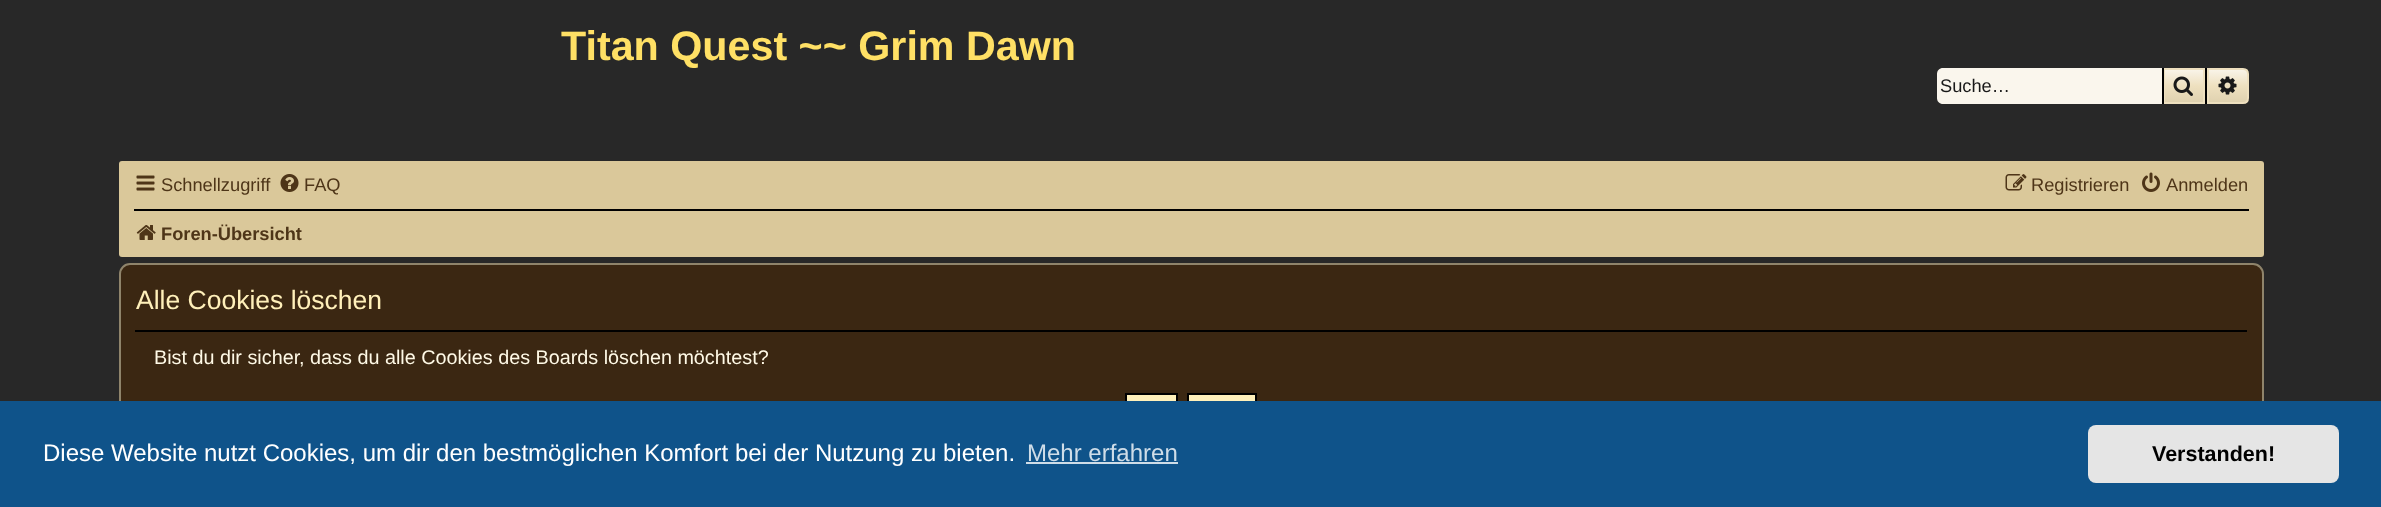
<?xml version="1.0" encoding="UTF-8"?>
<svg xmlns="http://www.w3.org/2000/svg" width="2381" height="507">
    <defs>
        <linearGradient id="g1" gradientUnits="userSpaceOnUse" x1="2184" y1="68" x2="2184" y2="104"><stop offset="0" stop-color="#FAF6ED"/><stop offset="0.5" stop-color="#EEE0BF"/><stop offset="1" stop-color="#DED0AE"/></linearGradient>
        <linearGradient id="g2" gradientUnits="userSpaceOnUse" x1="2228" y1="68" x2="2228" y2="104"><stop offset="0" stop-color="#FAF6ED"/><stop offset="0.5" stop-color="#EEE0BF"/><stop offset="1" stop-color="#DED0AE"/></linearGradient>
    </defs>
    <rect width="100%" height="100%" fill="#282828"/>
    <text x="561" y="60" font-family="Liberation Sans" font-size="41.25" font-weight="700" fill="#FFE065">Titan Quest ~~ Grim Dawn</text>
    <path d="M 1943 68 H 2162 V 104 H 1943 C 1939.5 104 1937 101.5 1937 98 V 74 C 1937 70.5 1939.5 68 1943 68 Z" fill="#FAF6ED"/>
    <text x="1940" y="92" font-family="Liberation Sans" font-size="18.25" fill="#191919">Suche…</text>
    <rect x="2165" y="70" width="38" height="32" fill="url(#g1)"/>
    <rect x="2164" y="69" width="40" height="34" fill="none" stroke="#EEE0BF" stroke-width="2"/>
    <rect x="2205" y="68" width="2" height="36" fill="#000000"/>
    <rect x="2162" y="68" width="2" height="36" fill="#000000"/>
    <image x="2173" y="76" width="20" height="20" href="img_01.png"/>
    <path d="M 2208 69 H 2243 C 2246 69 2248 71 2248 74 V 98 C 2248 101 2246 103 2243 103 H 2208 Z" fill="url(#g2)" stroke="#EEE0BF" stroke-width="2"/>
    <image x="2218" y="76" width="19" height="19" href="img_02.png"/>
    <rect x="119" y="161" width="2145" height="96" rx="3" fill="#DAC89A"/>
    <image x="136" y="175" width="19" height="16" href="img_03.png"/>
    <text x="161" y="191" font-family="Liberation Sans" font-size="18.25" fill="#4E3518">Schnellzugriff</text>
    <image x="280" y="174" width="19" height="18" href="img_04.png"/>
    <text x="304" y="191" font-family="Liberation Sans" font-size="18.25" fill="#4E3518">FAQ</text>
    <image x="2005" y="174" width="22" height="17" href="img_05.png"/>
    <text x="2031" y="191" font-family="Liberation Sans" font-size="18.25" fill="#4E3518">Registrieren</text>
    <image x="2142" y="172" width="18" height="20" href="img_06.png"/>
    <text x="2166" y="191" font-family="Liberation Sans" font-size="18.25" fill="#4E3518">Anmelden</text>
    <rect x="134" y="209" width="2115" height="2" fill="#000000"/>
    <image x="136" y="225" width="20" height="15" href="img_07.png"/>
    <text x="161" y="240" font-family="Liberation Sans" font-size="18.25" font-weight="700" fill="#4E3518">Foren-Übersicht</text>
    <rect x="120" y="264" width="2143" height="181" rx="10" fill="#3B2712" stroke="#8F846B" stroke-width="2"/>
    <rect x="135" y="330" width="2112" height="2" fill="#000000"/>
    <text x="136" y="309" font-family="Liberation Sans" font-size="26.5" fill="#FFF0BA">Alle Cookies löschen</text>
    <text x="154" y="364" font-family="Liberation Sans" font-size="19.8" fill="#FFF9E6">Bist du dir sicher, dass du alle Cookies des Boards löschen möchtest?</text>
    <rect x="1127" y="395" width="49" height="6" fill="#FFF0BA"/>
    <rect x="1126" y="394" width="51" height="34" fill="none" stroke="#000000" stroke-width="2"/>
    <rect x="1189" y="395" width="66" height="6" fill="#FFF0BA"/>
    <rect x="1188" y="394" width="68" height="34" fill="none" stroke="#000000" stroke-width="2"/>
    <rect x="0" y="401" width="2381" height="106" fill="#0F538A"/>
    <text x="43" y="461" font-family="Liberation Sans" font-size="24" fill="#FFFFFF">Diese Website nutzt Cookies, um dir den bestmöglichen Komfort bei der Nutzung zu bieten.</text>
    <text x="1027" y="461" font-family="Liberation Sans" font-size="24" fill="#CFDDE8">Mehr erfahren</text>
    <rect x="1026" y="462" width="152" height="2" fill="#CFDDE8"/>
    <rect x="2088" y="425" width="251" height="58" rx="8" fill="#E5E5E5"/>
    <text x="2152" y="461" font-family="Liberation Sans" font-size="21.5" font-weight="700" fill="#000000">Verstanden!</text>
</svg>
